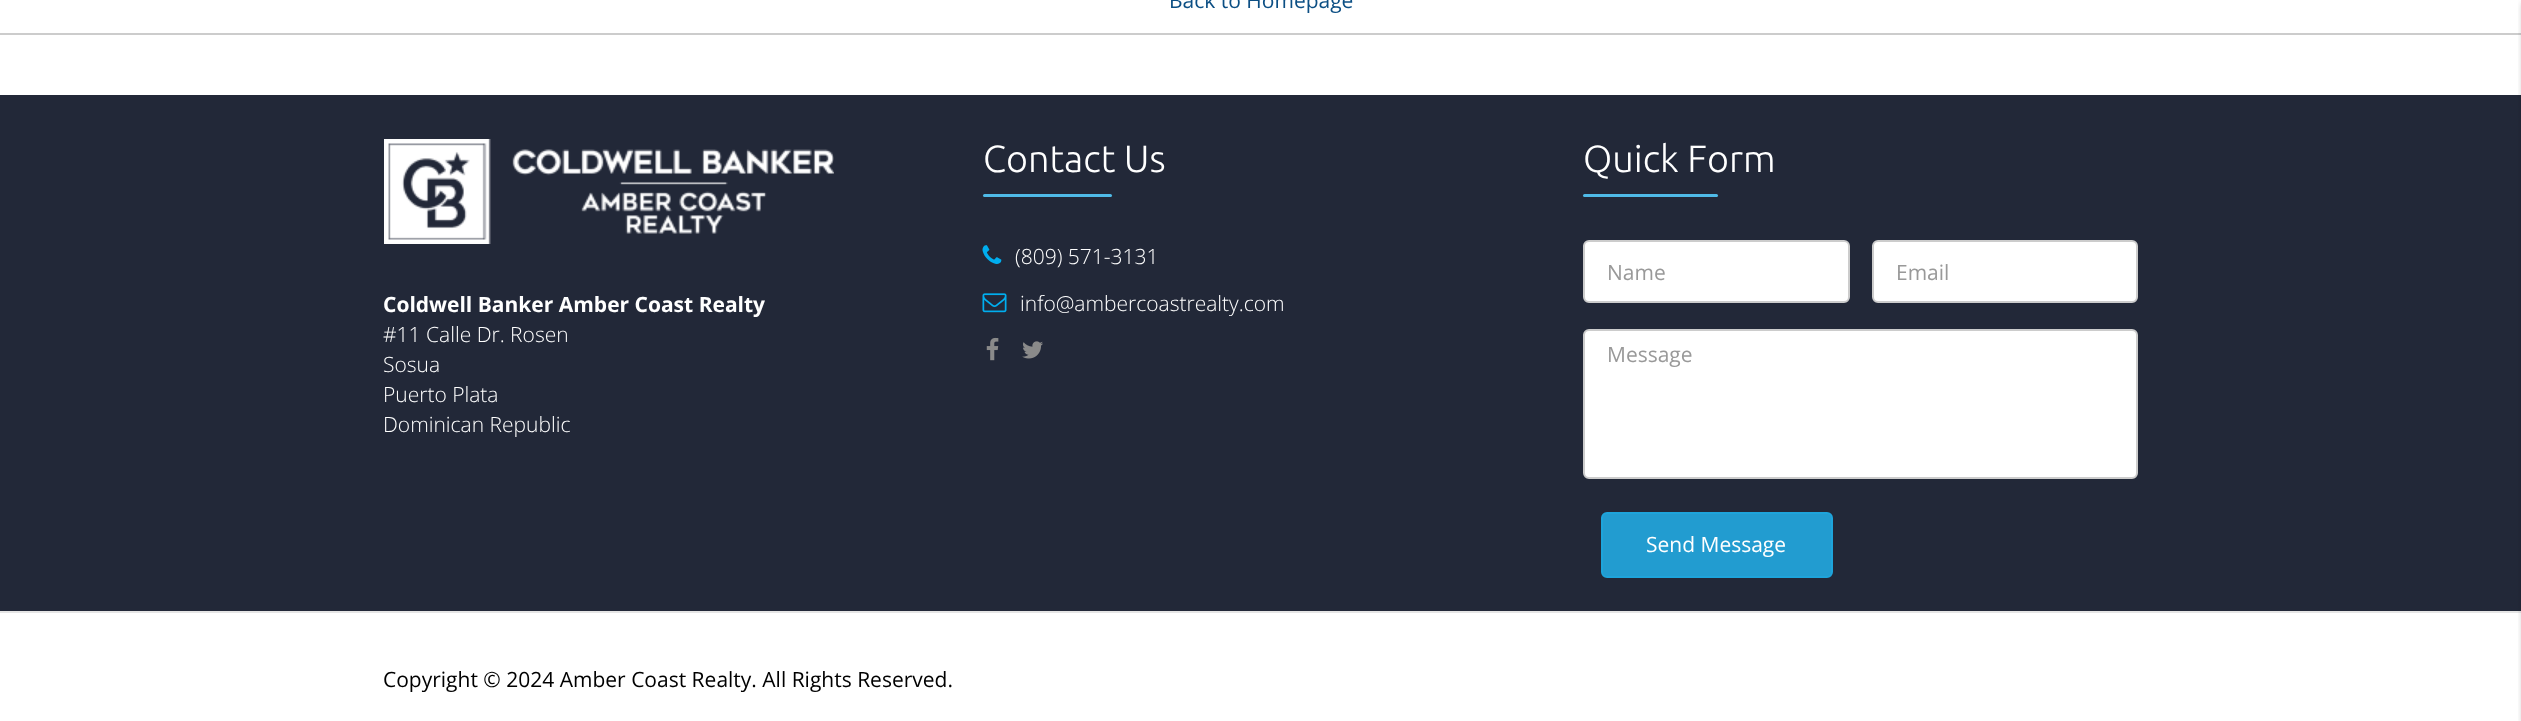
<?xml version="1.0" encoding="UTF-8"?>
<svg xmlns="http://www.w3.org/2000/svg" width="2521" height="721">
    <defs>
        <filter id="blur1" x="-50%" y="-200%" width="200%" height="500%"><feGaussianBlur stdDeviation="3"/></filter>
    </defs>
    <rect width="100%" height="100%" fill="#FFFFFF"/>
    <text x="1169" y="8" font-family="Open Sans" font-size="21" fill="#0C4F84">Back to Homepage</text>
    <rect x="0" y="33" width="2521" height="2" fill="#CCCCCC"/>
    <rect x="0" y="95" width="2521" height="516" fill="#222838"/>
    <rect x="0" y="611" width="2521" height="2" fill="#E5E5E5"/>
    <rect x="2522" y="3" width="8" height="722" fill="#000000" fill-opacity="0.2" filter="url(#blur1)"/>
    <text x="983" y="172" font-family="Ubuntu" font-size="37.75" font-weight="300" fill="#FFFFFF">Contact Us</text>
    <rect x="983" y="194" width="129" height="3" rx="1.5" fill="#4FBAE7"/>
    <image x="982" y="245" width="20" height="19" href="img_01.png"/>
    <text x="1015" y="264" font-family="Open Sans" font-size="21" font-weight="300" fill="#FFFFFF">(809) 571-3131</text>
    <image x="982" y="293" width="25" height="20" href="img_02.png"/>
    <text x="1020" y="311" font-family="Open Sans" font-size="21" font-weight="300" fill="#FFFFFF">info@ambercoastrealty.com</text>
    <image x="986" y="337" width="13" height="24" href="img_03.png"/>
    <image x="1022" y="341" width="21" height="18" href="img_04.png"/>
    <text x="1583" y="172" font-family="Ubuntu" font-size="37.75" font-weight="300" fill="#FFFFFF">Quick Form</text>
    <rect x="1583" y="194" width="135" height="3" rx="1.5" fill="#4FBAE7"/>
    <rect x="1584" y="241" width="265" height="61" rx="5" fill="#FFFFFF" stroke="#CCCCCC" stroke-width="2"/>
    <text x="1607" y="280" font-family="Open Sans" font-size="21" fill="#999999">Name</text>
    <rect x="1873" y="241" width="264" height="61" rx="5" fill="#FFFFFF" stroke="#CCCCCC" stroke-width="2"/>
    <text x="1896" y="280" font-family="Open Sans" font-size="21" fill="#999999">Email</text>
    <rect x="1584" y="330" width="553" height="148" rx="5" fill="#FFFFFF" stroke="#CCCCCC" stroke-width="2"/>
    <text x="1607" y="362" font-family="Open Sans" font-size="21" fill="#999999">Message</text>
    <rect x="1602" y="513" width="230" height="64" rx="5" fill="#229CD0" stroke="#1EA4DB" stroke-width="2"/>
    <text x="1646" y="552" font-family="Open Sans" font-size="21" fill="#FFFFFF">Send Message</text>
    <image x="384" y="139" width="450" height="105" href="img_05.png"/>
    <text x="383" y="312" font-family="Open Sans" font-size="21" font-weight="700" fill="#FFFFFF">Coldwell Banker Amber Coast Realty</text>
    <text font-family="Open Sans" font-size="21" font-weight="300" fill="#FFFFFF">
        <tspan x="383" y="342">#11 Calle Dr. Rosen</tspan>
        <tspan x="383" y="372">Sosua</tspan>
        <tspan x="383" y="402">Puerto Plata</tspan>
        <tspan x="383" y="432">Dominican Republic</tspan>
    </text>
    <text x="383" y="687" font-family="Open Sans" font-size="21" fill="#000000">Copyright © 2024 Amber Coast Realty. All Rights Reserved.</text>
</svg>
